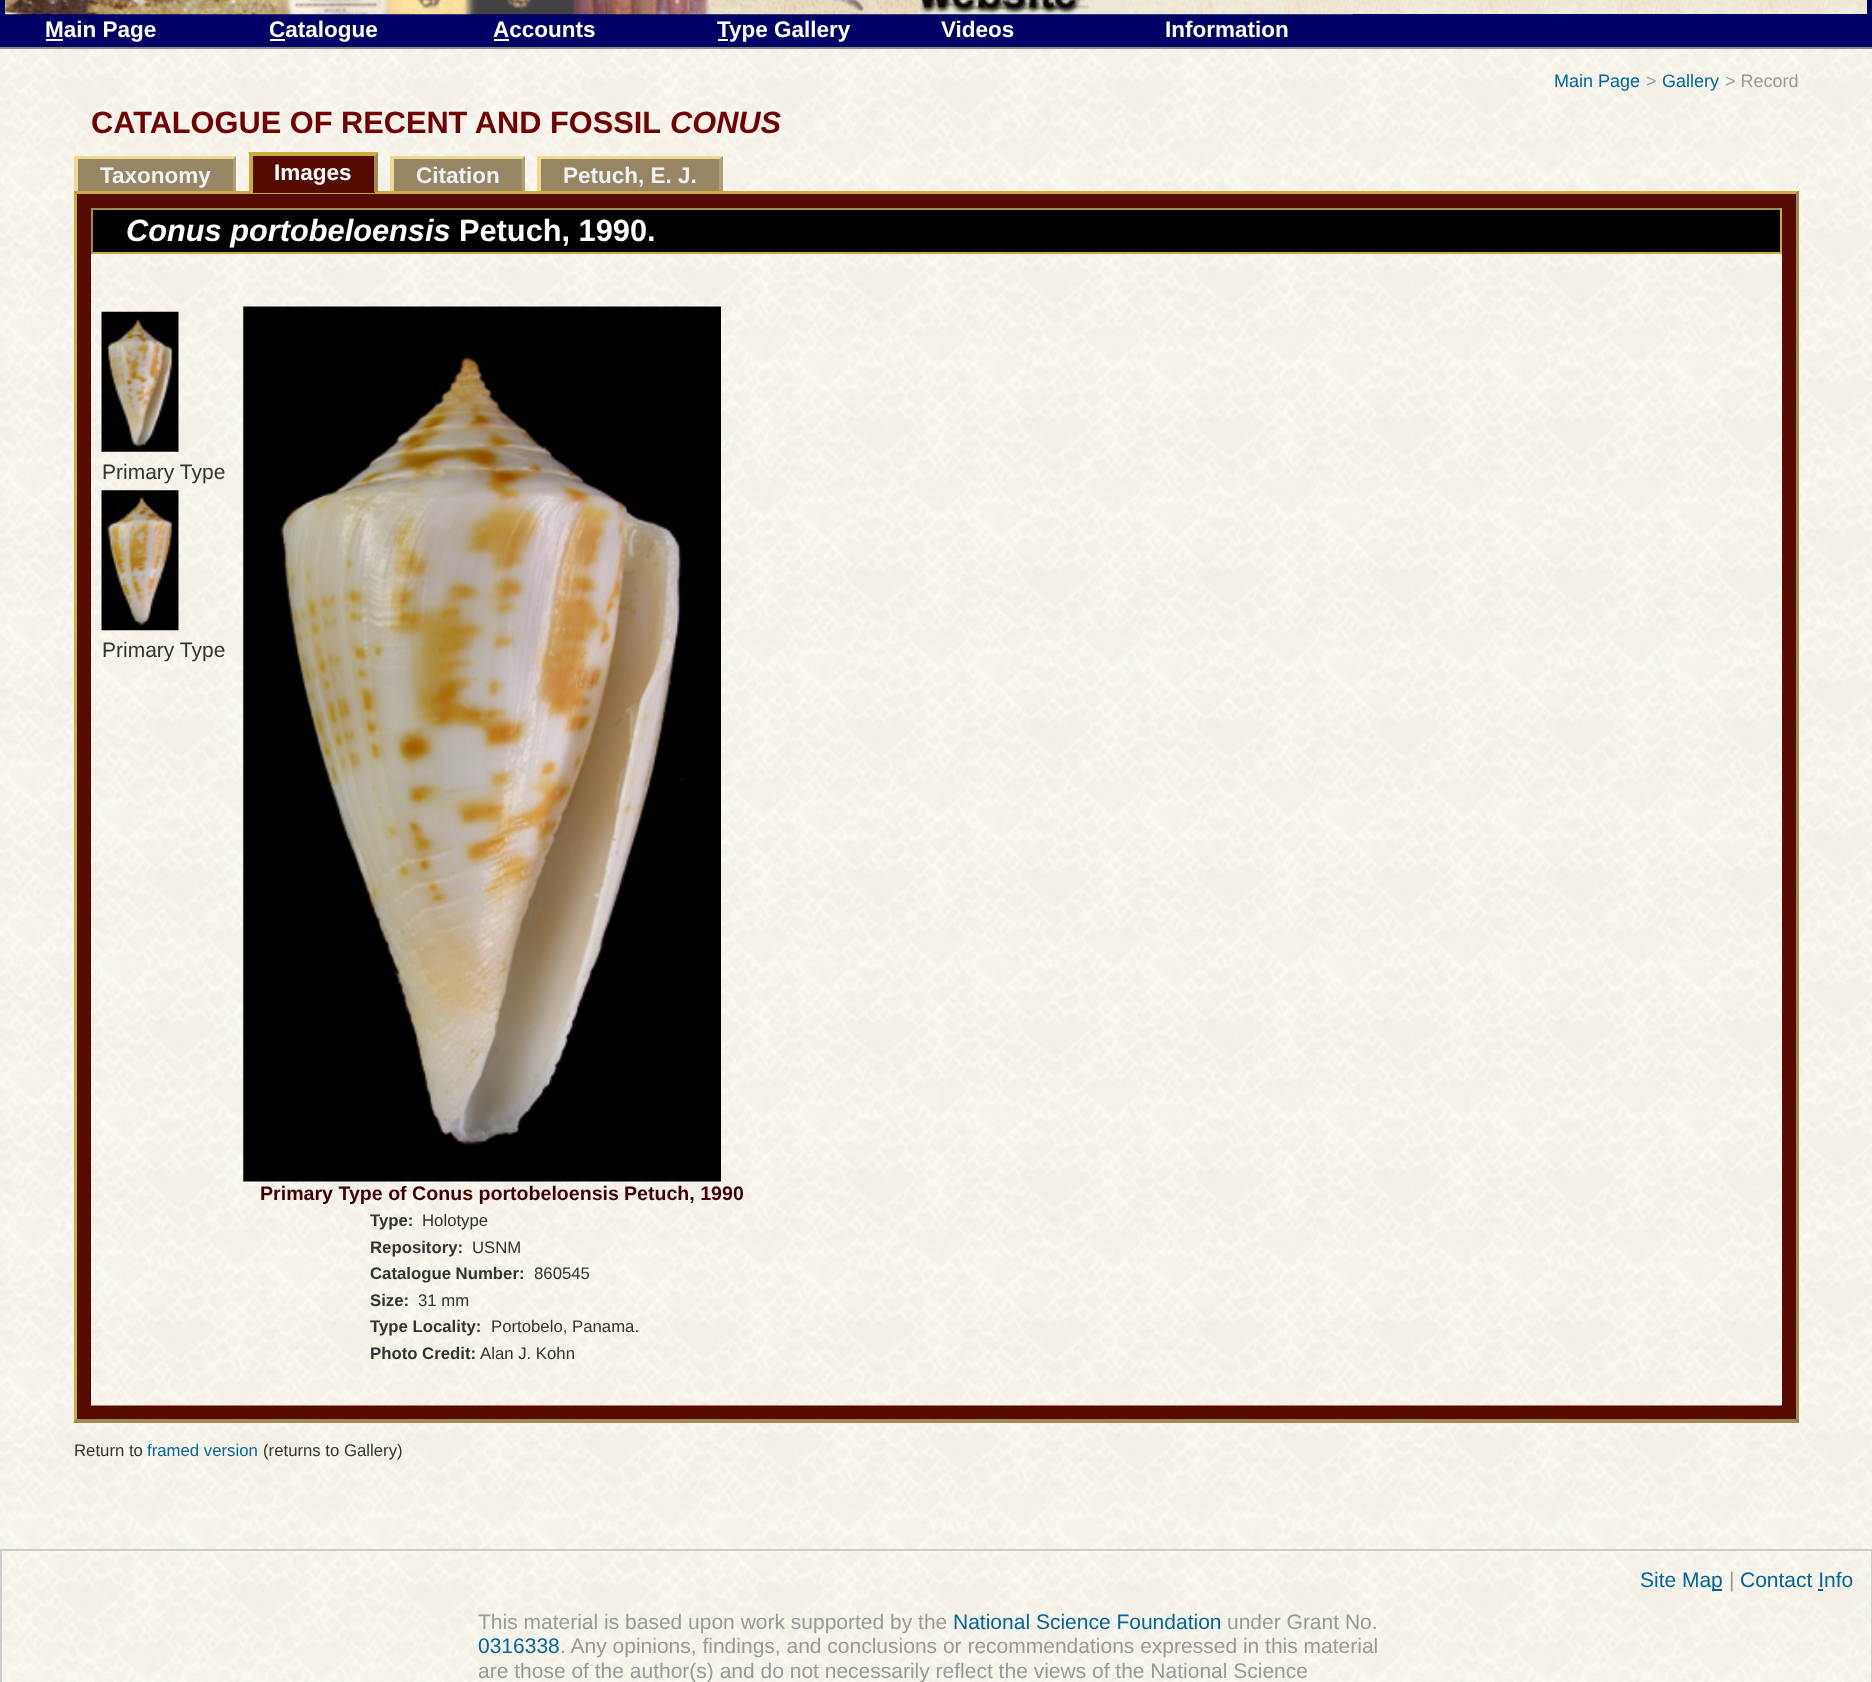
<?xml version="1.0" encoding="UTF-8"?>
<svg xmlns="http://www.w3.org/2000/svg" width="1872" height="1682">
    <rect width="100%" height="100%" fill="#FFFFFF"/>
    <image x="0" y="49" width="1872" height="1633" href="img_01.png"/>
    <image x="5" y="0" width="1862" height="14" href="img_02.png"/>
    <rect x="1867" y="0" width="5" height="14" fill="#000066"/>
    <rect x="0" y="0" width="5" height="14" fill="#000066"/>
    <rect x="0" y="14" width="1872" height="33" fill="#000066"/>
    <image x="5" y="0" width="1348" height="15" href="img_03.png"/>
    <rect x="0" y="47" width="1872" height="2" fill="#8D8B81"/>
    <rect x="46" y="39" width="17" height="2" fill="#FFFFFF"/>
    <text x="45" y="37" font-family="Liberation Sans" font-size="22.5" font-weight="700" fill="#FFFFFF">Main Page</text>
    <rect x="270" y="39" width="15" height="2" fill="#FFFFFF"/>
    <text x="269" y="37" font-family="Liberation Sans" font-size="22.5" font-weight="700" fill="#FFFFFF">Catalogue</text>
    <text x="493" y="37" font-family="Liberation Sans" font-size="22.5" font-weight="700" fill="#FFFFFF">Accounts</text>
    <rect x="494" y="39" width="15" height="2" fill="#FFFFFF"/>
    <text x="717" y="37" font-family="Liberation Sans" font-size="22.5" font-weight="700" fill="#FFFFFF">T</text>
    <rect x="718" y="39" width="10" height="2" fill="#FFFFFF"/>
    <text x="729" y="37" font-family="Liberation Sans" font-size="22.5" font-weight="700" fill="#FFFFFF">ype Gallery</text>
    <text x="941" y="37" font-family="Liberation Sans" font-size="22.5" font-weight="700" fill="#FFFFFF">Videos</text>
    <text x="1165" y="37" font-family="Liberation Sans" font-size="22.5" font-weight="700" fill="#FFFFFF">Information</text>
    <text x="1554" y="87" font-family="Liberation Sans" font-size="18" fill="#006699">Main Page</text>
    <text x="1646" y="87" font-family="Liberation Sans" font-size="18" fill="#999999">&gt;</text>
    <text x="1662" y="87" font-family="Liberation Sans" font-size="18" fill="#006699">Gallery</text>
    <text x="1725" y="87" font-family="Liberation Sans" font-size="18" fill="#999999">&gt; Record</text>
    <text x="91" y="133" font-family="Liberation Sans" font-size="30.75" font-weight="700" fill="#710000">CATALOGUE OF RECENT AND FOSSIL</text>
    <text x="670" y="133" font-family="Liberation Sans" font-size="30.75" font-weight="700" font-style="italic" fill="#710000">CONUS</text>
    <rect x="78" y="159" width="155" height="32" fill="#968663"/>
    <text x="100" y="183" font-family="Liberation Sans" font-size="22.5" font-weight="700" fill="#F0F1F7">Taxonomy</text>
    <path d="M 74 156 H 236 L 233 159 H 77 Z" fill="#EBDB91"/>
    <path d="M 236 156 V 192.5 H 233 V 159 Z" fill="#ABA178"/>
    <rect x="74" y="156" width="4" height="37" fill="#EBDB91"/>
    <rect x="394" y="159" width="128" height="32" fill="#968663"/>
    <path d="M 390 156 H 525 L 522 159 H 394 Z" fill="#EBDB91"/>
    <path d="M 525 156 V 192.5 H 521.5 V 159 Z" fill="#ABA178"/>
    <rect x="390" y="156" width="4" height="37" fill="#EBDB91"/>
    <path d="M 537 156 H 723 L 719 159 H 541 Z" fill="#EBDB91"/>
    <path d="M 723 156 V 192.5 H 719 V 159 Z" fill="#ABA178"/>
    <rect x="537" y="156" width="4" height="37" fill="#EBDB91"/>
    <rect x="74" y="191" width="1725" height="1232" fill="#560B01"/>
    <path d="M 74 191 H 1799 L 1796 194 H 77 Z" fill="#CDAD39"/>
    <rect x="253" y="156" width="122" height="37" fill="#560B01"/>
    <text x="274" y="180" font-family="Liberation Sans" font-size="22.5" font-weight="700" fill="#FFFFFF">Images</text>
    <path d="M 248 152 H 378 L 374 156 H 252 Z" fill="#CDAD39"/>
    <path d="M 378 152 V 192 H 374 V 156 Z" fill="#A08A50"/>
    <rect x="249" y="152" width="4" height="41" fill="#CDAD39"/>
    <text x="416" y="183" font-family="Liberation Sans" font-size="22.5" font-weight="700" fill="#F0F1F7">Citation</text>
    <rect x="541" y="159" width="178" height="32" fill="#968663"/>
    <text x="563" y="183" font-family="Liberation Sans" font-size="22.5" font-weight="700" fill="#F0F1F7">Petuch, E. J.</text>
    <path d="M 1799 191 V 1423 L 1796 1419 V 194 Z" fill="#A08A50"/>
    <path d="M 1799 1423 H 74 L 77 1419 H 1796 Z" fill="#A08A50"/>
    <path d="M 74 1423 V 191 L 77 194 V 1419 Z" fill="#CDAD39"/>
    <rect x="1781" y="254" width="1" height="1151" fill="#FFFFFF"/>
    <image x="91" y="254" width="1691" height="1152" href="img_04.png"/>
    <rect x="93" y="210" width="1687" height="42" fill="#000000"/>
    <rect x="91" y="208" width="1691" height="2" fill="#A08A50"/>
    <rect x="1780" y="208" width="2" height="46" fill="#CDAD39"/>
    <rect x="91" y="252" width="1691" height="2" fill="#CDAD39"/>
    <rect x="91" y="208" width="2" height="46" fill="#A08A50"/>
    <text x="126" y="241" font-family="Liberation Sans" font-size="30.75" font-weight="700" font-style="italic" fill="#FFFFFF">Conus portobeloensis</text>
    <text x="459" y="241" font-family="Liberation Sans" font-size="30.75" font-weight="700" fill="#FFFFFF">Petuch, 1990.</text>
    <image x="101" y="311" width="78" height="141" href="img_05.png"/>
    <text x="102" y="479" font-family="Liberation Sans" font-size="21" fill="#333333">Primary Type</text>
    <image x="101" y="490" width="78" height="141" href="img_06.png"/>
    <text x="102" y="657" font-family="Liberation Sans" font-size="21" fill="#333333">Primary Type</text>
    <image x="243" y="306" width="478" height="876" href="img_07.png"/>
    <text x="260" y="1200" font-family="Liberation Sans" font-size="19.6" font-weight="700" fill="#400000">Primary Type of Conus portobeloensis</text>
    <text x="624" y="1200" font-family="Liberation Sans" font-size="19.6" font-weight="700" fill="#400000">Petuch, 1990</text>
    <text x="370" y="1226" font-family="Liberation Sans" font-size="16.75" font-weight="700" fill="#333333">Type:</text>
    <text x="422" y="1226" font-family="Liberation Sans" font-size="16.75" fill="#333333">Holotype</text>
    <text x="370" y="1253" font-family="Liberation Sans" font-size="16.75" font-weight="700" fill="#333333">Repository:</text>
    <text x="472" y="1253" font-family="Liberation Sans" font-size="16.75" fill="#333333">USNM</text>
    <text x="370" y="1279" font-family="Liberation Sans" font-size="16.75" font-weight="700" fill="#333333">Catalogue Number:</text>
    <text x="534" y="1279" font-family="Liberation Sans" font-size="16.75" fill="#333333">860545</text>
    <text x="370" y="1306" font-family="Liberation Sans" font-size="16.75" font-weight="700" fill="#333333">Size:</text>
    <text x="418" y="1306" font-family="Liberation Sans" font-size="16.75" fill="#333333">31 mm</text>
    <text x="370" y="1332" font-family="Liberation Sans" font-size="16.75" font-weight="700" fill="#333333">Type Locality:</text>
    <text x="491" y="1332" font-family="Liberation Sans" font-size="16.75" fill="#333333">Portobelo, Panama.</text>
    <text x="370" y="1359" font-family="Liberation Sans" font-size="16.75" font-weight="700" fill="#333333">Photo Credit:</text>
    <text x="480" y="1359" font-family="Liberation Sans" font-size="16.75" fill="#333333">Alan J. Kohn</text>
    <text x="74" y="1456" font-family="Liberation Sans" font-size="16.75" fill="#333333">Return to</text>
    <text x="147" y="1456" font-family="Liberation Sans" font-size="16.75" fill="#006699">framed version</text>
    <text x="263" y="1456" font-family="Liberation Sans" font-size="16.75" fill="#333333">(returns to Gallery)</text>
    <rect x="1" y="1550" width="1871" height="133" fill="none" stroke="#CCCCCC" stroke-width="2"/>
    <text x="1640" y="1587" font-family="Liberation Sans" font-size="21" fill="#006699">Site Ma</text>
    <rect x="1712" y="1589" width="10" height="2" fill="#006699"/>
    <text x="1711" y="1587" font-family="Liberation Sans" font-size="21" fill="#006699">p</text>
    <text x="1729" y="1587" font-family="Liberation Sans" font-size="21" fill="#999999">|</text>
    <text x="1740" y="1587" font-family="Liberation Sans" font-size="21" fill="#006699">Contact Info</text>
    <rect x="1818" y="1589" width="5" height="2" fill="#006699"/>
    <text x="478" y="1629" font-family="Liberation Sans" font-size="21" fill="#999999">This material is based upon work supported by the</text>
    <text x="953" y="1629" font-family="Liberation Sans" font-size="21" fill="#006699">National Science Foundation</text>
    <text x="1227" y="1629" font-family="Liberation Sans" font-size="21" fill="#999999">under Grant No.</text>
    <text x="478" y="1653" font-family="Liberation Sans" font-size="21" fill="#006699">0316338</text>
    <text x="560" y="1653" font-family="Liberation Sans" font-size="21" fill="#999999">. Any opinions, findings, and conclusions or recommendations expressed in this material</text>
    <text x="478" y="1678" font-family="Liberation Sans" font-size="21" fill="#999999">are those of the author(s) and do not necessarily reflect the views of the National Science</text>
</svg>
